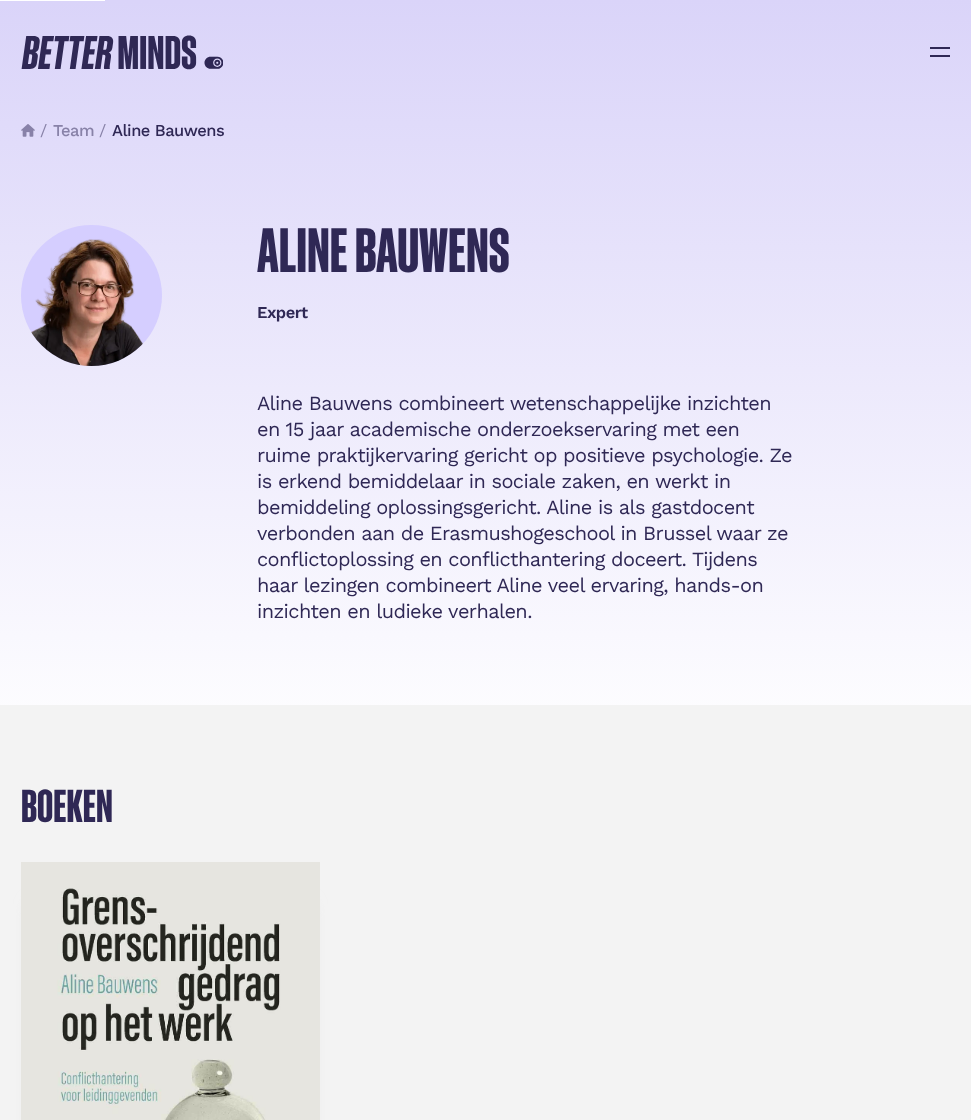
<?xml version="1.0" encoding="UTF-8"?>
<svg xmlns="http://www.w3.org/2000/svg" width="971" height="1120">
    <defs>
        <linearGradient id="g1" gradientUnits="userSpaceOnUse" x1="485" y1="0" x2="486" y2="759"><stop offset="0" stop-color="#FFFFFF"/><stop offset="0" stop-color="#DAD4F9"/><stop offset="1" stop-color="#FFFFFF"/></linearGradient>
        <filter id="blur1" x="-50%" y="-200%" width="200%" height="500%"><feGaussianBlur stdDeviation="8"/></filter>
    </defs>
    <rect width="100%" height="100%" fill="#FFFFFF"/>
    <rect x="0" y="0" width="971" height="705" fill="url(#g1)"/>
    <image x="21" y="35" width="202" height="35" href="img_01.png"/>
    <rect x="930" y="47" width="20" height="2" fill="#2F2855"/>
    <rect x="930" y="55" width="20" height="2" fill="#2F2855"/>
    <image x="21" y="124" width="14" height="13" href="img_02.png"/>
    <text x="40" y="136" font-family="Work Sans" font-size="16.5" letter-spacing="-0.5" fill="#8882A8">/</text>
    <text x="53" y="136" font-family="Work Sans" font-size="16.5" font-weight="500" letter-spacing="-0.5" fill="#8882A8">Team</text>
    <text x="99" y="136" font-family="Work Sans" font-size="16.5" letter-spacing="-0.5" fill="#8882A8">/</text>
    <text x="112" y="136" font-family="Work Sans" font-size="16.5" font-weight="500" letter-spacing="-0.5" fill="#2F2855">Aline Bauwens</text>
    <circle cx="91.5" cy="295.5" r="70.5" fill="#D5CEFF"/>
    <image x="31" y="239" width="112" height="127" href="img_03.png"/>
    <text x="257" y="272" font-family="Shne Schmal" font-size="61" font-weight="700" fill="#2F2855">ALINE BAUWENS</text>
    <text x="257" y="318" font-family="Work Sans" font-size="16.5" font-weight="600" letter-spacing="-0.5" fill="#2F2855">Expert</text>
    <text font-family="Work Sans" font-size="20" letter-spacing="-0.6" fill="#2F2855">
        <tspan x="257" y="410">Aline Bauwens combineert wetenschappelijke inzichten</tspan>
        <tspan x="257" y="436">en 15 jaar academische onderzoekservaring met een</tspan>
        <tspan x="257" y="462">ruime praktijkervaring gericht op positieve psychologie. Ze</tspan>
        <tspan x="257" y="488">is erkend bemiddelaar in sociale zaken, en werkt in</tspan>
        <tspan x="257" y="514">bemiddeling oplossingsgericht. Aline is als gastdocent</tspan>
        <tspan x="257" y="540">verbonden aan de Erasmushogeschool in Brussel waar ze</tspan>
        <tspan x="257" y="566">conflictoplossing en conflicthantering doceert. Tijdens</tspan>
        <tspan x="257" y="592">haar lezingen combineert Aline veel ervaring, hands-on</tspan>
        <tspan x="257" y="618">inzichten en ludieke verhalen.</tspan>
    </text>
    <rect x="0" y="705" width="971" height="415" fill="#F3F3F3"/>
    <text x="21" y="822" font-family="Shne Schmal" font-size="45" font-weight="700" fill="#2F2855">BOEKEN</text>
    <rect x="31" y="904" width="279" height="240" fill="#D9D9D9" filter="url(#blur1)"/>
    <image x="21" y="862" width="299" height="258" href="img_04.png"/>
</svg>
